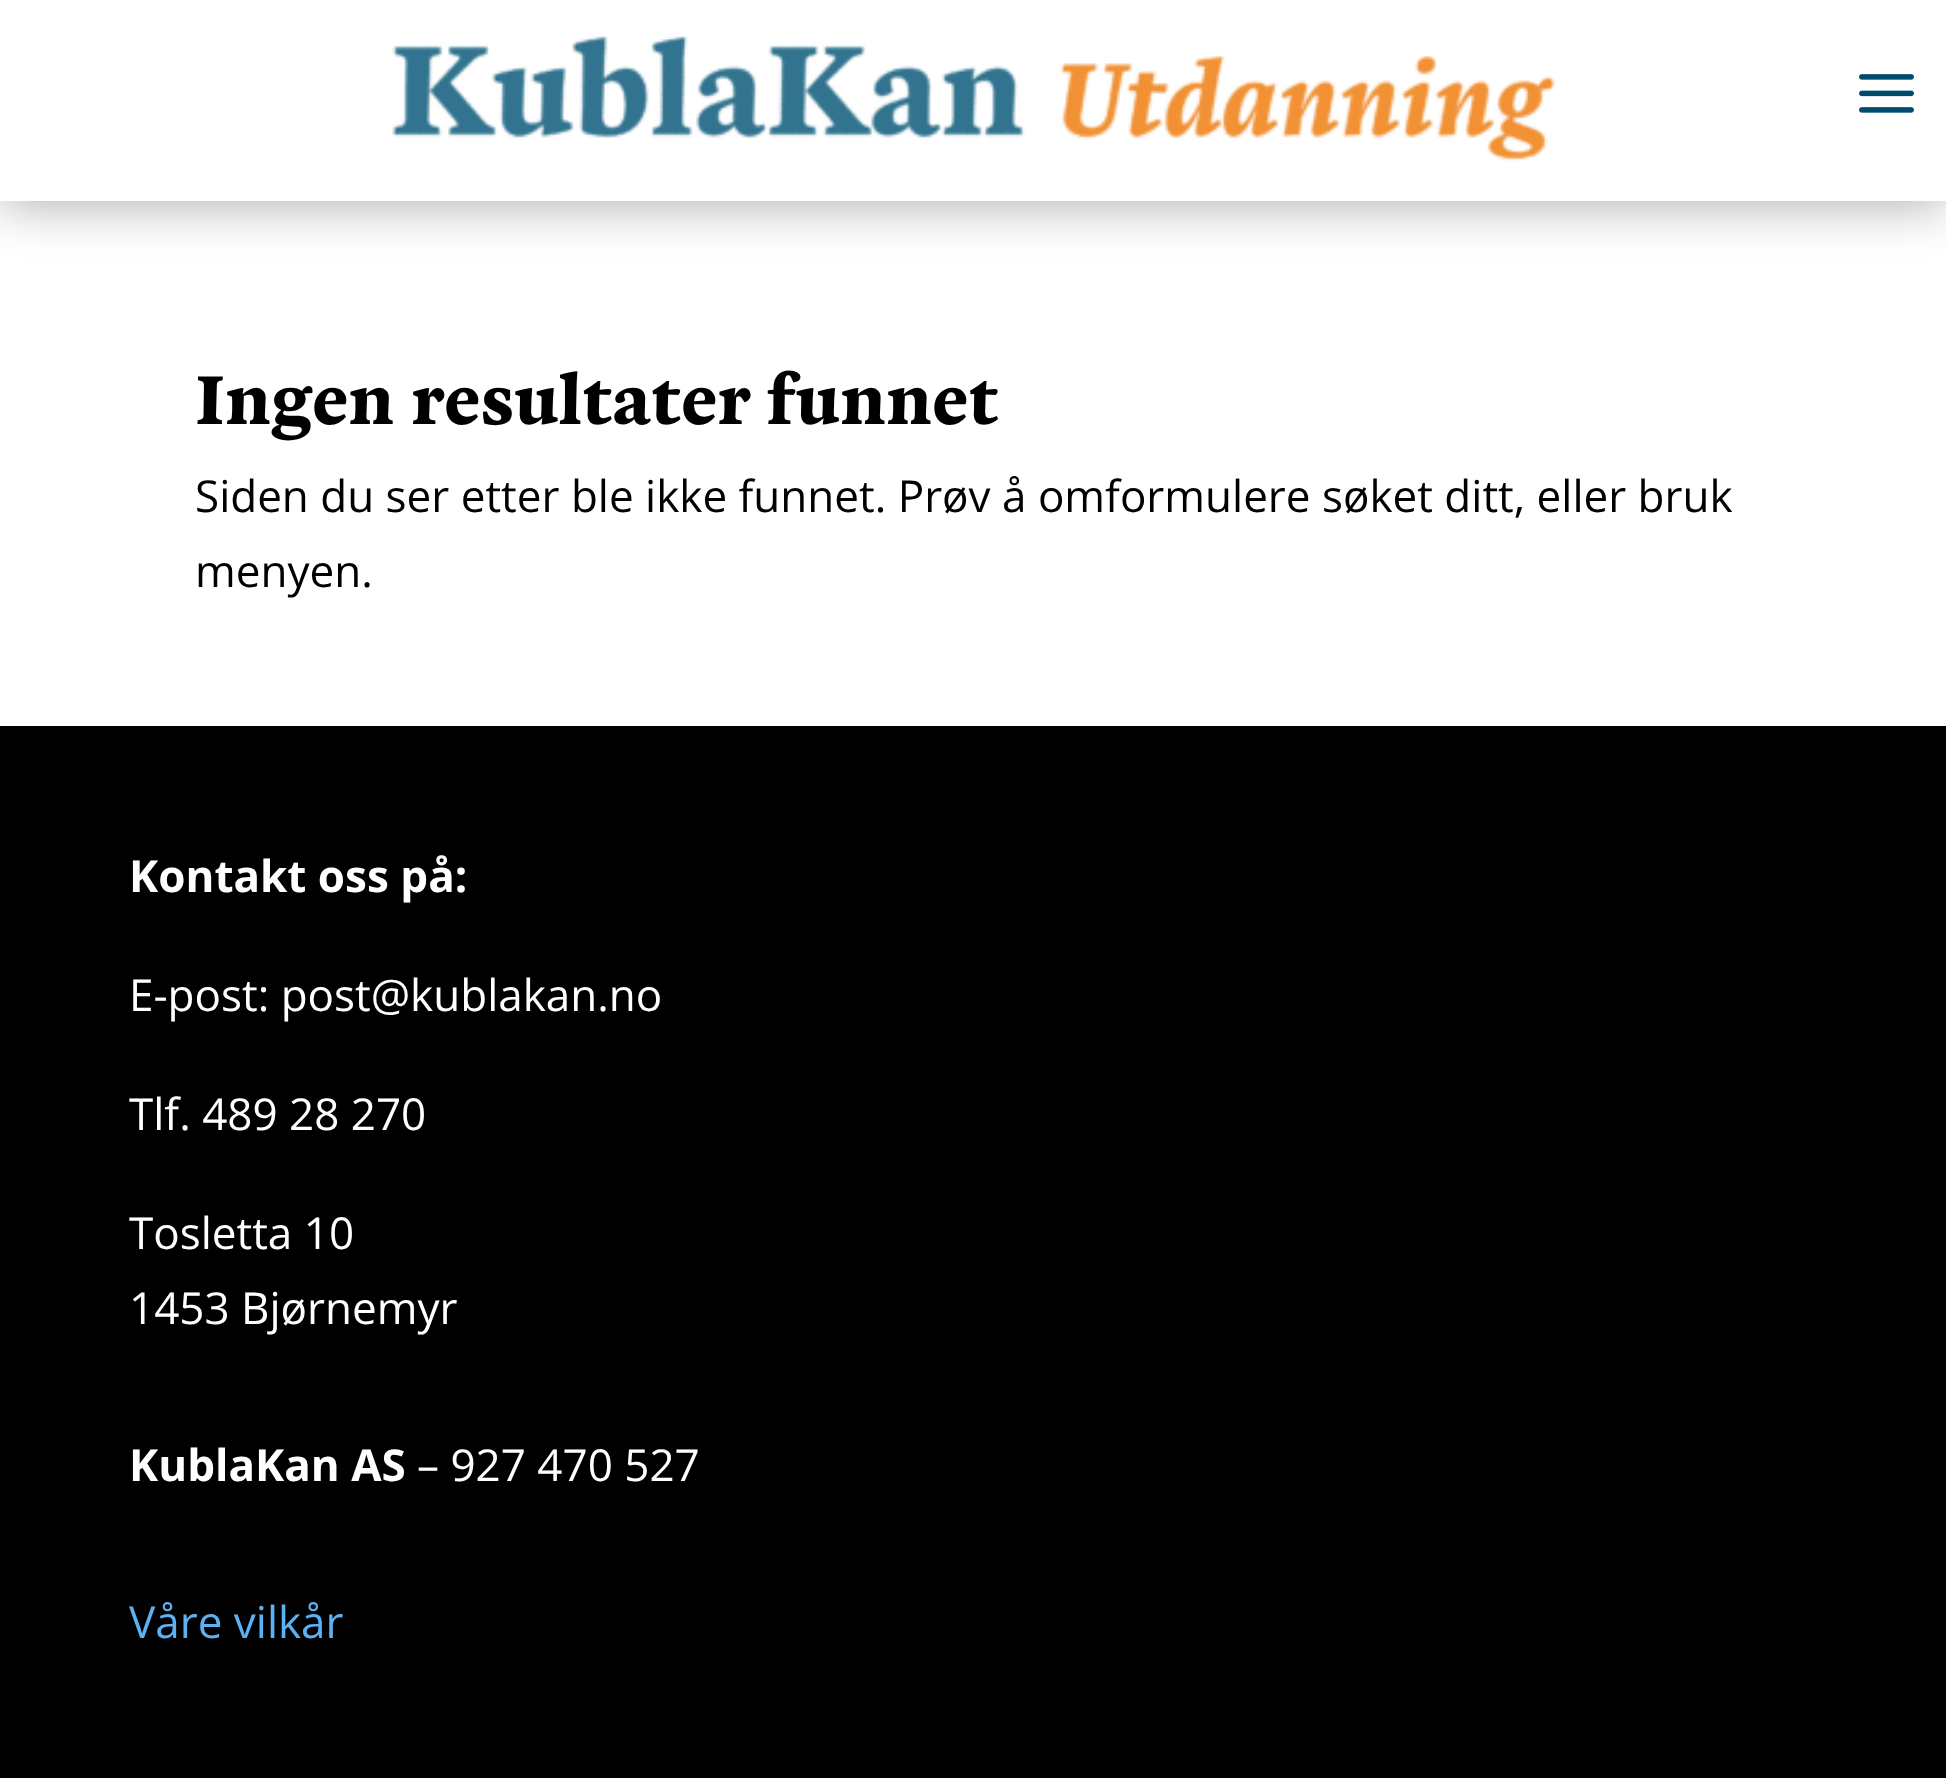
<?xml version="1.0" encoding="UTF-8"?>
<svg xmlns="http://www.w3.org/2000/svg" width="1946" height="1778">
    <defs>
        <filter id="blur1" x="-50%" y="-200%" width="200%" height="500%"><feGaussianBlur stdDeviation="25"/></filter>
    </defs>
    <rect width="100%" height="100%" fill="#FFFFFF"/>
    <rect x="0" y="6" width="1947" height="200" fill="#000000" fill-opacity="0.3" filter="url(#blur1)"/>
    <rect x="0" y="0" width="1946" height="201" fill="#FFFFFF"/>
    <image x="392" y="35" width="1163" height="127" href="img_01.png"/>
    <image x="1859" y="74" width="55" height="39" href="img_02.png"/>
    <text x="195" y="424" font-family="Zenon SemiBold" font-size="71.5" font-weight="600" fill="#000000">Ingen resultater funnet</text>
    <text font-family="Open Sans" font-size="44" fill="#000000">
        <tspan x="195" y="512">Siden du ser etter ble ikke funnet. Prøv å omformulere søket ditt, eller bruk</tspan>
        <tspan x="195" y="587">menyen.</tspan>
    </text>
    <rect x="0" y="726" width="1946" height="1052" fill="#000000"/>
    <text x="129" y="892" font-family="Open Sans" font-size="44" font-weight="700" fill="#FFFFFF">Kontakt oss på:</text>
    <text x="129" y="1011" font-family="Open Sans" font-size="44" fill="#FFFFFF">E-post: post@kublakan.no</text>
    <text x="129" y="1130" font-family="Open Sans" font-size="44" fill="#FFFFFF">Tlf. 489 28 270</text>
    <text font-family="Open Sans" font-size="44" fill="#FFFFFF">
        <tspan x="129" y="1249">Tosletta 10</tspan>
        <tspan x="129" y="1324">1453 Bjørnemyr</tspan>
    </text>
    <text x="129" y="1481" font-family="Open Sans" font-size="44" font-weight="700" fill="#FFFFFF">KublaKan AS</text>
    <text x="417" y="1481" font-family="Open Sans" font-size="44" fill="#FFFFFF">– 927 470 527</text>
    <text x="129" y="1638" font-family="Open Sans" font-size="44" fill="#5CB1F2">Våre vilkår</text>
</svg>
